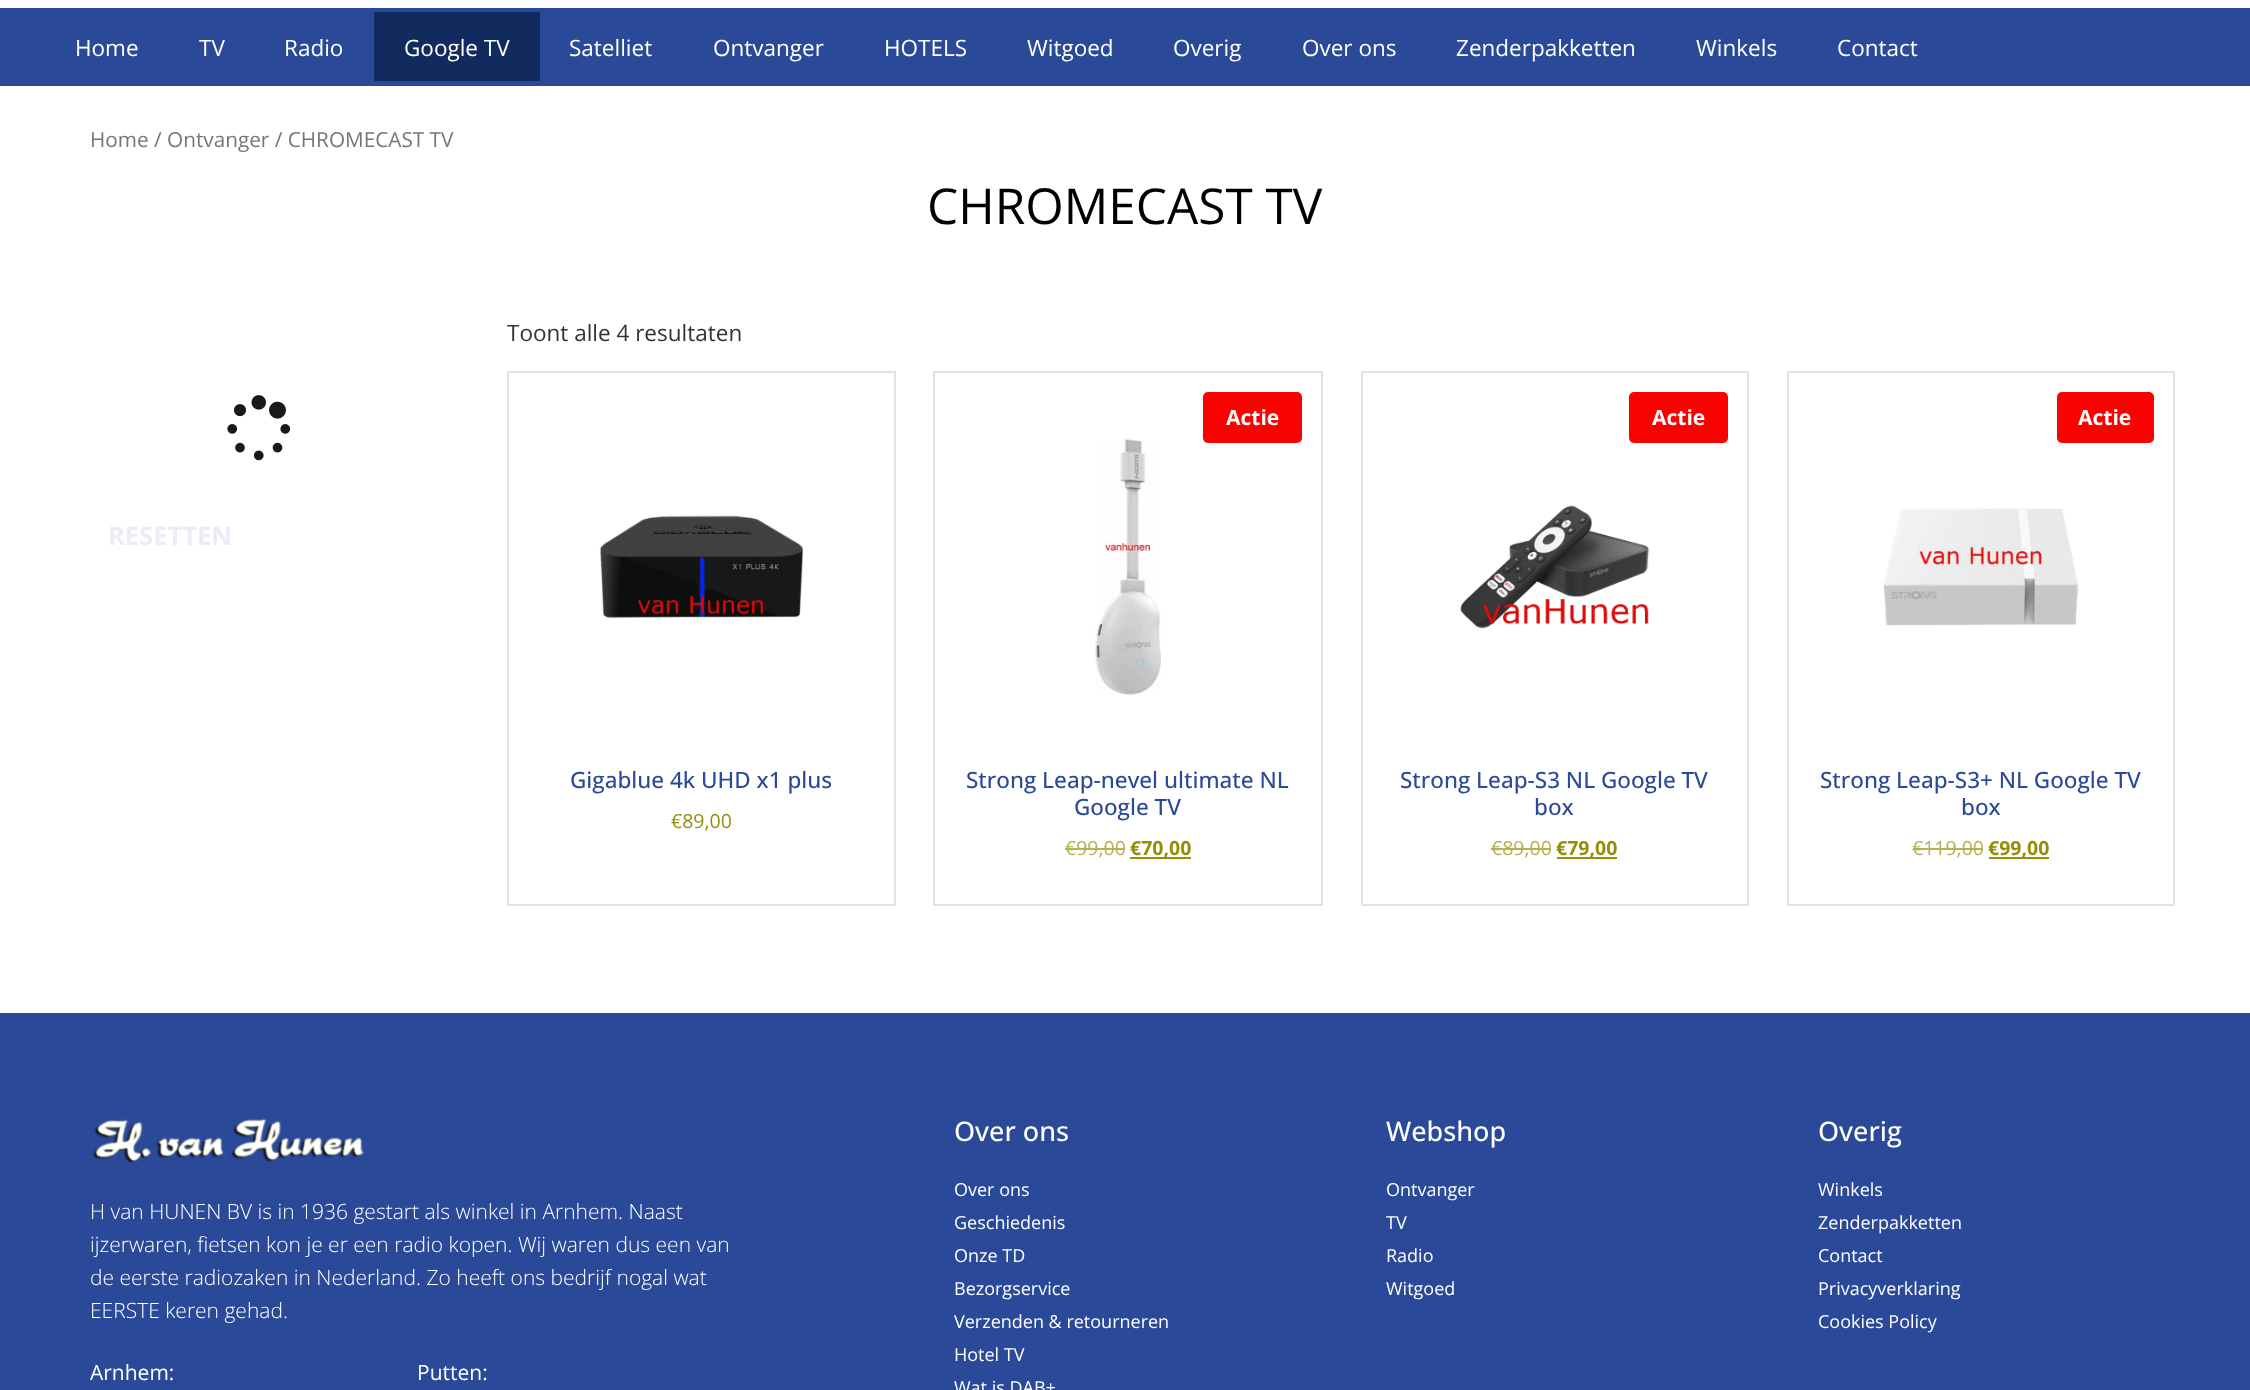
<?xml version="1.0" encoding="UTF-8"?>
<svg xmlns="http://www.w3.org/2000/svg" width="2250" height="1390">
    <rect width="100%" height="100%" fill="#FFFFFF"/>
    <rect x="0" y="8" width="2250" height="78" fill="#2A4999"/>
    <text x="75" y="56" font-family="Open Sans" font-size="22.5" fill="#FFFFFF">Home</text>
    <text x="199" y="56" font-family="Open Sans" font-size="22.5" fill="#FFFFFF">TV</text>
    <text x="284" y="56" font-family="Open Sans" font-size="22.5" fill="#FFFFFF">Radio</text>
    <rect x="374" y="12" width="166" height="69" fill="#122B5F"/>
    <text x="404" y="56" font-family="Open Sans" font-size="22.5" fill="#FFFFFF">Google TV</text>
    <text x="569" y="56" font-family="Open Sans" font-size="22.5" fill="#FFFFFF">Satelliet</text>
    <text x="713" y="56" font-family="Open Sans" font-size="22.5" fill="#FFFFFF">Ontvanger</text>
    <text x="884" y="56" font-family="Open Sans" font-size="22.5" fill="#FFFFFF">HOTELS</text>
    <text x="1027" y="56" font-family="Open Sans" font-size="22.5" fill="#FFFFFF">Witgoed</text>
    <text x="1173" y="56" font-family="Open Sans" font-size="22.5" fill="#FFFFFF">Overig</text>
    <text x="1302" y="56" font-family="Open Sans" font-size="22.5" fill="#FFFFFF">Over ons</text>
    <text x="1456" y="56" font-family="Open Sans" font-size="22.5" fill="#FFFFFF">Zenderpakketten</text>
    <text x="1696" y="56" font-family="Open Sans" font-size="22.5" fill="#FFFFFF">Winkels</text>
    <text x="1837" y="56" font-family="Open Sans" font-size="22.5" fill="#FFFFFF">Contact</text>
    <text x="90" y="147" font-family="Open Sans" font-size="20.75" fill="#767676">Home / Ontvanger / CHROMECAST TV</text>
    <text x="927" y="224" font-family="Open Sans" font-size="49.5" fill="#000000">CHROMECAST TV</text>
    <image x="227" y="395" width="64" height="66" href="img_01.png"/>
    <text x="108" y="545" font-family="Open Sans" font-size="25.5" font-weight="700" fill="#EAEDF5">RESETTEN</text>
    <text x="507" y="341" font-family="Open Sans" font-size="22.5" fill="#333333">Toont alle 4 resultaten</text>
    <rect x="508" y="372" width="387" height="533" fill="none" stroke="#E2E2E2" stroke-width="2"/>
    <image x="599" y="515" width="205" height="104" href="img_02.png"/>
    <text x="570" y="788" font-family="Open Sans" font-size="22.5" font-weight="500" fill="#2A4999">Gigablue 4k UHD x1 plus</text>
    <text x="671" y="828" font-family="Open Sans" font-size="19.5" fill="#958E09">€89,00</text>
    <rect x="934" y="372" width="388" height="533" fill="none" stroke="#E2E2E2" stroke-width="2"/>
    <rect x="1203" y="392" width="99" height="51" rx="5" fill="#F90202"/>
    <text x="1226" y="425" font-family="Open Sans" font-size="21" font-weight="700" fill="#FFFFFF">Actie</text>
    <image x="1095" y="439" width="66" height="256" href="img_03.png"/>
    <text x="966" y="788" font-family="Open Sans" font-size="22.5" font-weight="500" fill="#2A4999">Strong Leap-nevel ultimate NL</text>
    <text x="1074" y="815" font-family="Open Sans" font-size="22.5" font-weight="500" fill="#2A4999">Google TV</text>
    <text x="1065" y="855" font-family="Open Sans" font-size="19.5" fill="#B5B053">€99,00</text>
    <rect x="1065" y="848" width="60" height="2" fill="#B5B053"/>
    <rect x="1130" y="857" width="61" height="2" fill="#958E09"/>
    <text x="1130" y="855" font-family="Open Sans" font-size="19.5" font-weight="700" fill="#958E09">€70,00</text>
    <rect x="1362" y="372" width="386" height="533" fill="none" stroke="#E2E2E2" stroke-width="2"/>
    <rect x="1629" y="392" width="99" height="51" rx="5" fill="#F90202"/>
    <text x="1652" y="425" font-family="Open Sans" font-size="21" font-weight="700" fill="#FFFFFF">Actie</text>
    <image x="1460" y="505" width="190" height="124" href="img_04.png"/>
    <text x="1400" y="788" font-family="Open Sans" font-size="22.5" font-weight="500" fill="#2A4999">Strong Leap-S3 NL Google TV</text>
    <text x="1534" y="815" font-family="Open Sans" font-size="22.5" font-weight="500" fill="#2A4999">box</text>
    <text x="1491" y="855" font-family="Open Sans" font-size="19.5" fill="#B5B053">€89,00</text>
    <rect x="1491" y="848" width="60" height="2" fill="#B5B053"/>
    <rect x="1557" y="857" width="60" height="2" fill="#958E09"/>
    <text x="1556" y="855" font-family="Open Sans" font-size="19.5" font-weight="700" fill="#958E09">€79,00</text>
    <rect x="1788" y="372" width="386" height="533" fill="none" stroke="#E2E2E2" stroke-width="2"/>
    <rect x="2057" y="392" width="97" height="51" rx="5" fill="#F90202"/>
    <text x="2078" y="425" font-family="Open Sans" font-size="21" font-weight="700" fill="#FFFFFF">Actie</text>
    <image x="1883" y="508" width="196" height="118" href="img_05.png"/>
    <text x="1820" y="788" font-family="Open Sans" font-size="22.5" font-weight="500" fill="#2A4999">Strong Leap-S3+ NL Google TV</text>
    <text x="1961" y="815" font-family="Open Sans" font-size="22.5" font-weight="500" fill="#2A4999">box</text>
    <text x="1912" y="855" font-family="Open Sans" font-size="19.5" fill="#B5B053">€119,00</text>
    <rect x="1913" y="848" width="70" height="2" fill="#B5B053"/>
    <rect x="1989" y="857" width="60" height="2" fill="#958E09"/>
    <text x="1988" y="855" font-family="Open Sans" font-size="19.5" font-weight="700" fill="#958E09">€99,00</text>
    <rect x="0" y="1013" width="2250" height="377" fill="#2A4999"/>
    <image x="92" y="1118" width="272" height="45" href="img_06.png"/>
    <text font-family="Open Sans" font-size="21" font-weight="300" fill="#FFFFFF">
        <tspan x="90" y="1219">H van HUNEN BV is in 1936 gestart als winkel in Arnhem. Naast</tspan>
        <tspan x="90" y="1252">ijzerwaren, fietsen kon je er een radio kopen. Wij waren dus een van</tspan>
        <tspan x="90" y="1285">de eerste radiozaken in Nederland. Zo heeft ons bedrijf nogal wat</tspan>
        <tspan x="90" y="1318">EERSTE keren gehad.</tspan>
    </text>
    <text x="90" y="1380" font-family="Open Sans" font-size="21" fill="#FFFFFF">Arnhem:</text>
    <text x="417" y="1380" font-family="Open Sans" font-size="21" fill="#FFFFFF">Putten:</text>
    <text x="954" y="1141" font-family="Open Sans" font-size="27" font-weight="500" fill="#FFFFFF">Over ons</text>
    <text font-family="Open Sans" font-size="18" fill="#FFFFFF">
        <tspan x="954" y="1196">Over ons</tspan>
        <tspan x="954" y="1229">Geschiedenis</tspan>
        <tspan x="954" y="1262">Onze TD</tspan>
        <tspan x="954" y="1295">Bezorgservice</tspan>
        <tspan x="954" y="1328">Verzenden &amp; retourneren</tspan>
        <tspan x="954" y="1361">Hotel TV</tspan>
        <tspan x="954" y="1394">Wat is DAB+</tspan>
    </text>
    <text x="1386" y="1141" font-family="Open Sans" font-size="27" font-weight="500" fill="#FFFFFF">Webshop</text>
    <text font-family="Open Sans" font-size="18" fill="#FFFFFF">
        <tspan x="1386" y="1196">Ontvanger</tspan>
        <tspan x="1386" y="1229">TV</tspan>
        <tspan x="1386" y="1262">Radio</tspan>
        <tspan x="1386" y="1295">Witgoed</tspan>
    </text>
    <text x="1818" y="1141" font-family="Open Sans" font-size="27" font-weight="500" fill="#FFFFFF">Overig</text>
    <text font-family="Open Sans" font-size="18" fill="#FFFFFF">
        <tspan x="1818" y="1196">Winkels</tspan>
        <tspan x="1818" y="1229">Zenderpakketten</tspan>
        <tspan x="1818" y="1262">Contact</tspan>
        <tspan x="1818" y="1295">Privacyverklaring</tspan>
        <tspan x="1818" y="1328">Cookies Policy</tspan>
    </text>
</svg>
